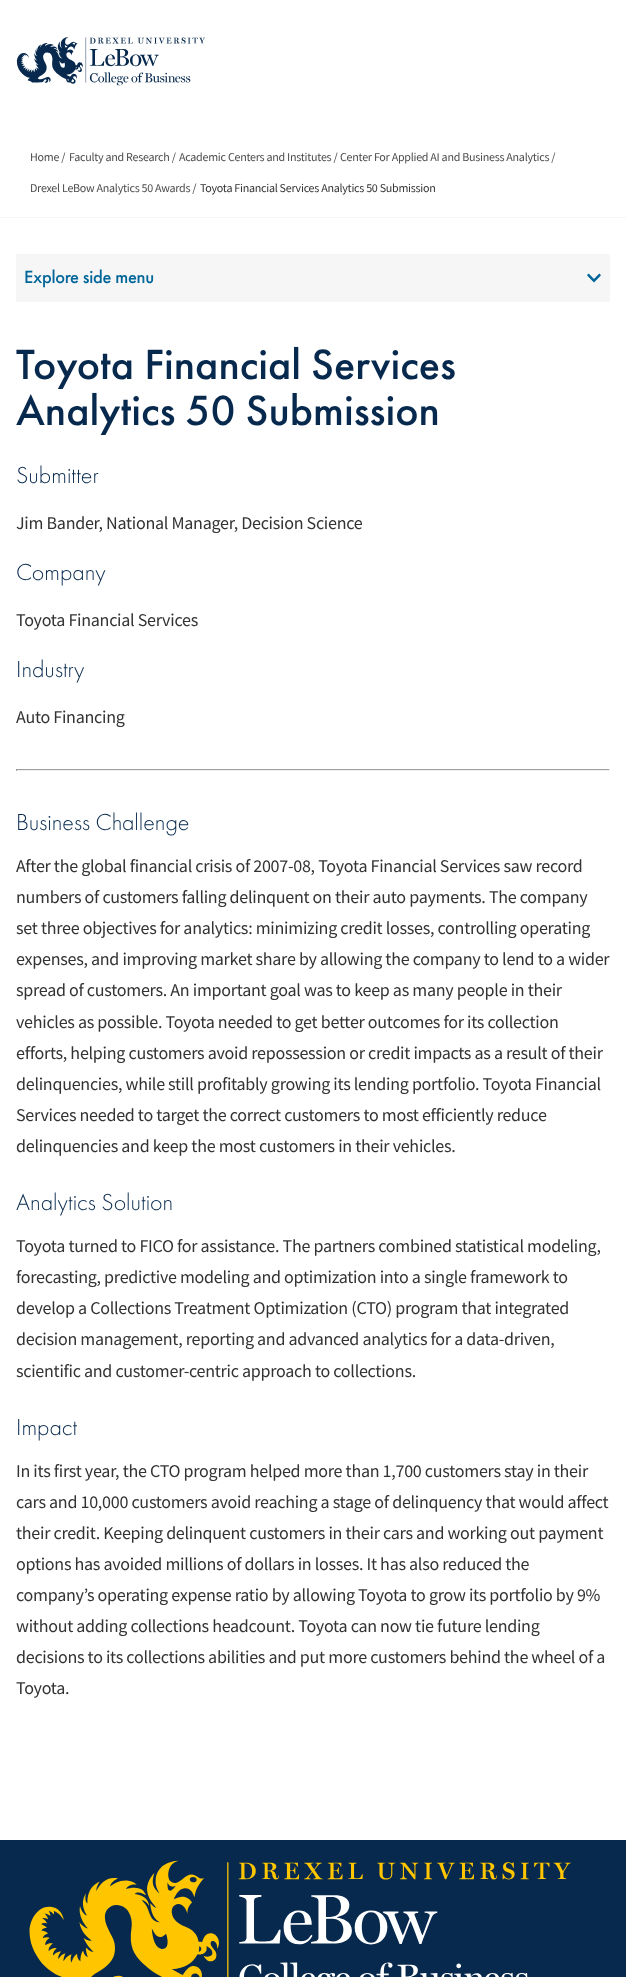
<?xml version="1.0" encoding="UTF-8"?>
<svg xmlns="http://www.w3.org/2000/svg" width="626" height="1977">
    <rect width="100%" height="100%" fill="#FFFFFF"/>
    <rect x="0" y="217" width="626" height="1" fill="#F6F6F6"/>
    <image x="16" y="37" width="190" height="49" href="img_01.png"/>
    <text x="30" y="161" font-family="Source Sans Pro" font-size="12" letter-spacing="-0.27" fill="#4C4C4C">Home /</text>
    <text x="69" y="161" font-family="Source Sans Pro" font-size="12" letter-spacing="-0.27" fill="#4C4C4C">Faculty and Research /</text>
    <text x="179" y="161" font-family="Source Sans Pro" font-size="12" letter-spacing="-0.27" fill="#4C4C4C">Academic Centers and Institutes /</text>
    <text x="340" y="161" font-family="Source Sans Pro" font-size="12" letter-spacing="-0.27" fill="#4C4C4C">Center For Applied AI and Business Analytics /</text>
    <text x="30" y="192" font-family="Source Sans Pro" font-size="12" letter-spacing="-0.27" fill="#4C4C4C">Drexel LeBow Analytics 50 Awards /</text>
    <text x="200" y="192" font-family="Source Sans Pro" font-size="12" letter-spacing="-0.27" fill="#333333">Toyota Financial Services Analytics 50 Submission</text>
    <rect x="16" y="254" width="594" height="48" fill="#F6F6F6"/>
    <text x="24" y="283" font-family="Futura PT" font-size="18.5" font-weight="500" letter-spacing="-0.27" fill="#006699">Explore side menu</text>
    <image x="587" y="273" width="14" height="10" href="img_02.png"/>
    <text font-family="Futura PT" font-size="44" font-weight="500" fill="#07294D">
        <tspan x="16" y="379">Toyota Financial Services</tspan>
        <tspan x="16" y="425">Analytics 50 Submission</tspan>
    </text>
    <text x="16" y="483" font-family="Futura PT" font-size="24" font-weight="300" fill="#07294D">Submitter</text>
    <text x="16" y="529" font-family="Source Sans Pro" font-size="18" letter-spacing="-0.27" fill="#333333">Jim Bander, National Manager, Decision Science</text>
    <text x="16" y="580" font-family="Futura PT" font-size="24" font-weight="300" fill="#07294D">Company</text>
    <text x="16" y="626" font-family="Source Sans Pro" font-size="18" letter-spacing="-0.27" fill="#333333">Toyota Financial Services</text>
    <text x="16" y="677" font-family="Futura PT" font-size="24" font-weight="300" fill="#07294D">Industry</text>
    <text x="16" y="723" font-family="Source Sans Pro" font-size="18" letter-spacing="-0.27" fill="#333333">Auto Financing</text>
    <rect x="16" y="769" width="594" height="1" fill="#9F9F9F"/>
    <rect x="609" y="769" width="1" height="2" fill="#EEEEEE"/>
    <rect x="16" y="770" width="594" height="1" fill="#EEEEEE"/>
    <rect x="16" y="769" width="1" height="2" fill="#9F9F9F"/>
    <text x="16" y="830" font-family="Futura PT" font-size="24" font-weight="300" fill="#07294D">Business Challenge</text>
    <text font-family="Source Sans Pro" font-size="18" letter-spacing="-0.27" fill="#333333">
        <tspan x="16" y="872">After the global financial crisis of 2007-08, Toyota Financial Services saw record</tspan>
        <tspan x="16" y="903">numbers of customers falling delinquent on their auto payments. The company</tspan>
        <tspan x="16" y="934">set three objectives for analytics: minimizing credit losses, controlling operating</tspan>
        <tspan x="16" y="965">expenses, and improving market share by allowing the company to lend to a wider</tspan>
        <tspan x="16" y="996">spread of customers. An important goal was to keep as many people in their</tspan>
        <tspan x="16" y="1028">vehicles as possible. Toyota needed to get better outcomes for its collection</tspan>
        <tspan x="16" y="1059">efforts, helping customers avoid repossession or credit impacts as a result of their</tspan>
        <tspan x="16" y="1090">delinquencies, while still profitably growing its lending portfolio. Toyota Financial</tspan>
        <tspan x="16" y="1121">Services needed to target the correct customers to most efficiently reduce</tspan>
        <tspan x="16" y="1152">delinquencies and keep the most customers in their vehicles.</tspan>
    </text>
    <text x="16" y="1210" font-family="Futura PT" font-size="24" font-weight="300" fill="#07294D">Analytics Solution</text>
    <text font-family="Source Sans Pro" font-size="18" letter-spacing="-0.27" fill="#333333">
        <tspan x="16" y="1252">Toyota turned to FICO for assistance. The partners combined statistical modeling,</tspan>
        <tspan x="16" y="1283">forecasting, predictive modeling and optimization into a single framework to</tspan>
        <tspan x="16" y="1314">develop a Collections Treatment Optimization (CTO) program that integrated</tspan>
        <tspan x="16" y="1345">decision management, reporting and advanced analytics for a data-driven,</tspan>
        <tspan x="16" y="1377">scientific and customer-centric approach to collections.</tspan>
    </text>
    <text x="16" y="1435" font-family="Futura PT" font-size="24" font-weight="300" fill="#07294D">Impact</text>
    <text font-family="Source Sans Pro" font-size="18" letter-spacing="-0.27" fill="#333333">
        <tspan x="16" y="1477">In its first year, the CTO program helped more than 1,700 customers stay in their</tspan>
        <tspan x="16" y="1508">cars and 10,000 customers avoid reaching a stage of delinquency that would affect</tspan>
        <tspan x="16" y="1539">their credit. Keeping delinquent customers in their cars and working out payment</tspan>
        <tspan x="16" y="1570">options has avoided millions of dollars in losses. It has also reduced the</tspan>
        <tspan x="16" y="1601">company’s operating expense ratio by allowing Toyota to grow its portfolio by 9%</tspan>
        <tspan x="16" y="1632">without adding collections headcount. Toyota can now tie future lending</tspan>
        <tspan x="16" y="1663">decisions to its collections abilities and put more customers behind the wheel of a</tspan>
        <tspan x="16" y="1694">Toyota.</tspan>
    </text>
    <rect x="0" y="1840" width="626" height="137" fill="#07294D"/>
    <image x="29" y="1860" width="542" height="117" href="img_03.png"/>
</svg>
